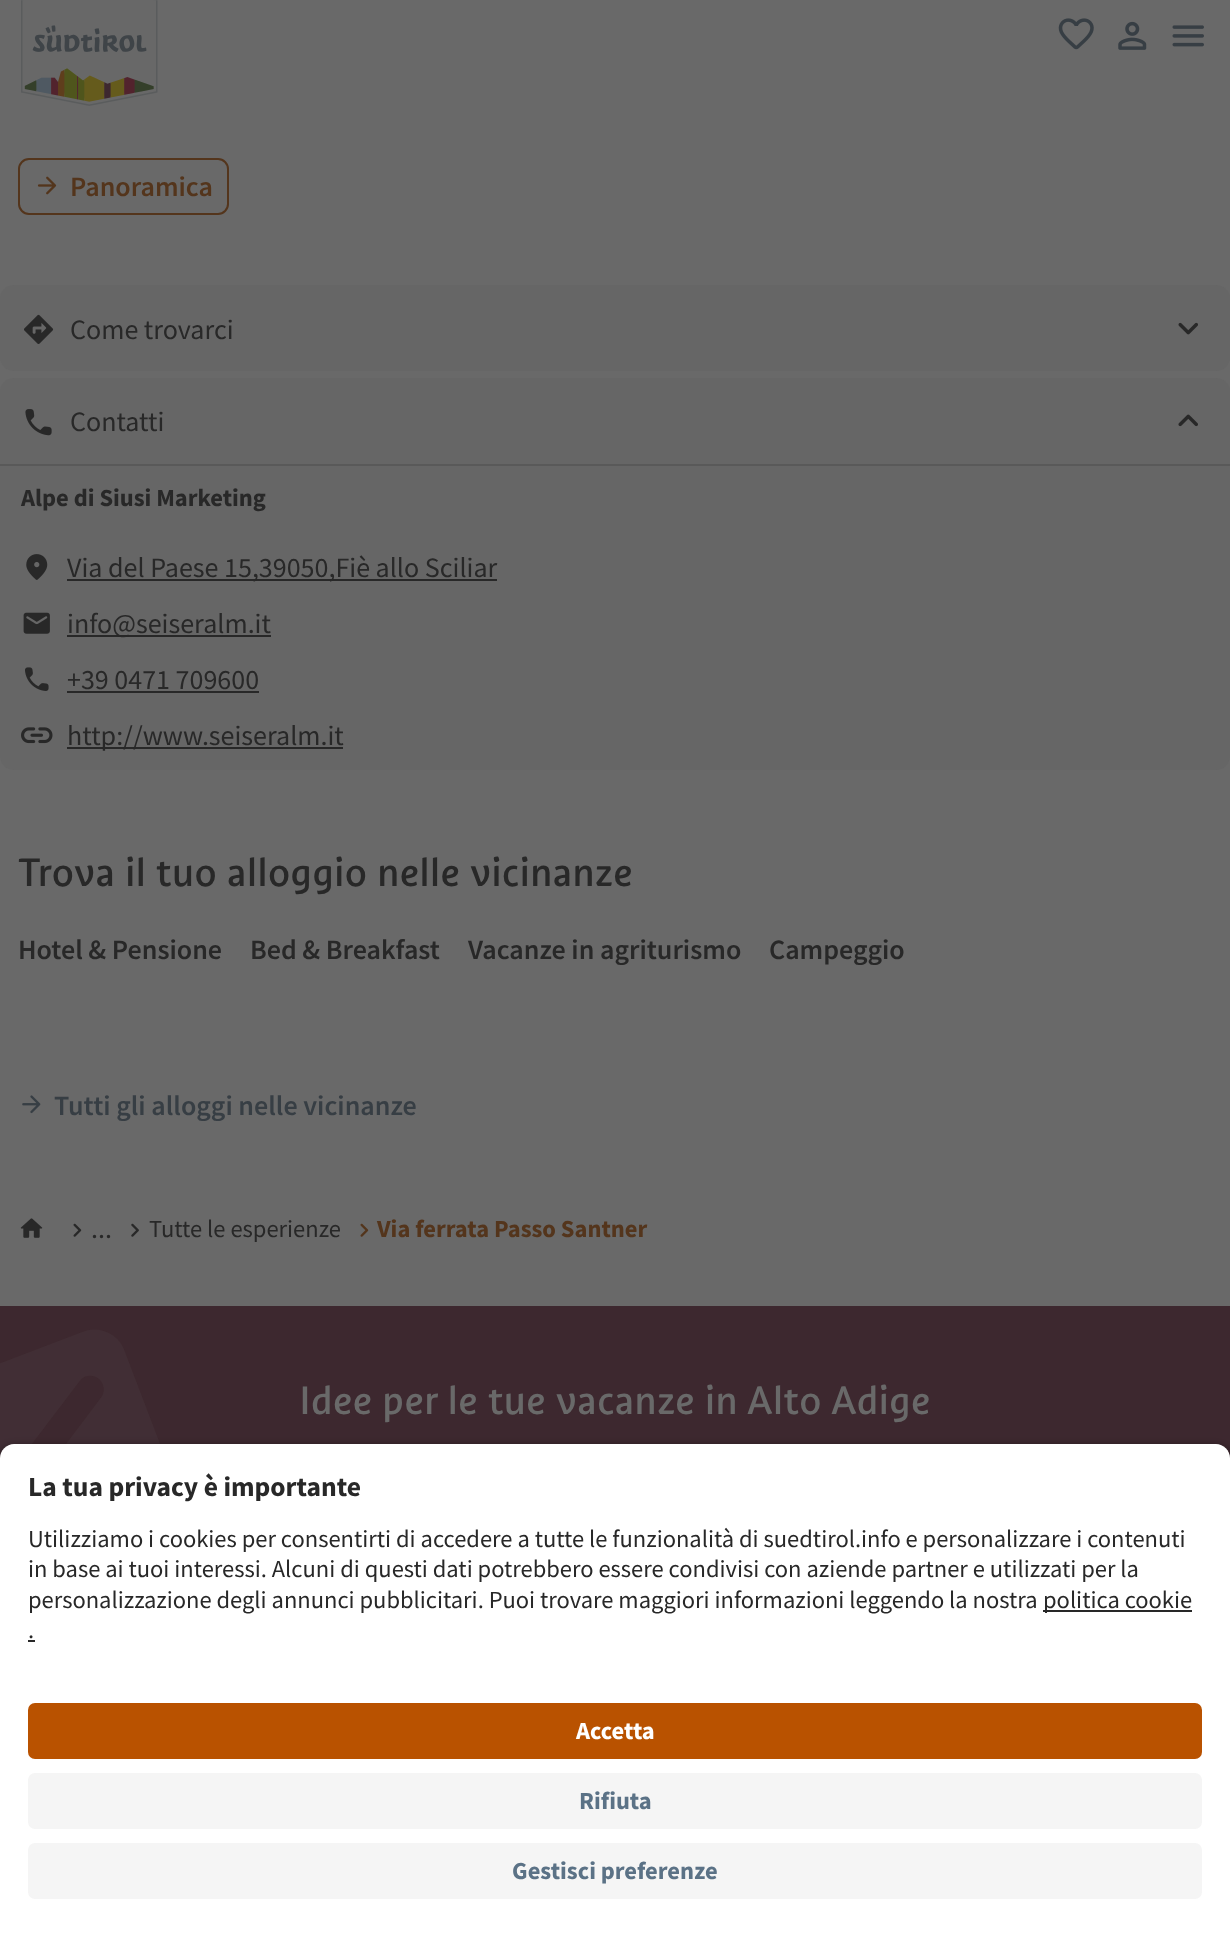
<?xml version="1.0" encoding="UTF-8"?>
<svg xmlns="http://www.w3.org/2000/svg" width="1230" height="1947">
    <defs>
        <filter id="blur1" x="-50%" y="-200%" width="200%" height="500%"><feGaussianBlur stdDeviation="6"/></filter>
    </defs>
    <rect width="100%" height="100%" fill="#696969"/>
    <image x="21" y="0" width="137" height="106" href="img_01.png"/>
    <image x="1058" y="18" width="36" height="32" href="img_02.png"/>
    <image x="1118" y="21" width="29" height="29" href="img_03.png"/>
    <image x="1172" y="25" width="32" height="22" href="img_04.png"/>
    <rect x="19" y="159" width="209" height="55" rx="10" fill="none" stroke="#54351C" stroke-width="2"/>
    <image x="37" y="176" width="20" height="19" href="img_05.png"/>
    <text x="70" y="196" font-family="Source Sans Pro" font-size="28" font-weight="600" fill="#54351C">Panoramica</text>
    <rect x="0" y="285" width="1230" height="86" rx="14" fill="#666666"/>
    <image x="24" y="314" width="30" height="30" href="img_06.png"/>
    <text x="70" y="339" font-family="Source Sans Pro" font-size="28" fill="#282828">Come trovarci</text>
    <image x="1178" y="322" width="20" height="13" href="img_07.png"/>
    <rect x="0" y="378" width="1230" height="392" rx="14" fill="#666666"/>
    <image x="25" y="409" width="27" height="27" href="img_08.png"/>
    <text x="70" y="431" font-family="Source Sans Pro" font-size="28" fill="#282828">Contatti</text>
    <image x="1178" y="414" width="20" height="13" href="img_09.png"/>
    <rect x="0" y="464" width="1230" height="2" fill="#595959"/>
    <text x="21" y="506" font-family="Source Sans Pro" font-size="24.5" font-weight="700" fill="#282828">Alpe di Siusi Marketing</text>
    <image x="26" y="554" width="22" height="26" href="img_10.png"/>
    <rect x="67" y="579" width="430" height="2" fill="#282828"/>
    <text x="67" y="577" font-family="Source Sans Pro" font-size="28" fill="#282828">Via del Paese 15,39050,Fiè allo Sciliar</text>
    <image x="23" y="612" width="27" height="22" href="img_11.png"/>
    <rect x="67" y="635" width="204" height="2" fill="#282828"/>
    <text x="67" y="633" font-family="Source Sans Pro" font-size="28" fill="#282828">info@seiseralm.it</text>
    <image x="25" y="667" width="24" height="24" href="img_12.png"/>
    <text x="67" y="689" font-family="Source Sans Pro" font-size="28" fill="#282828">+39 0471 709600</text>
    <rect x="67" y="691" width="192" height="2" fill="#282828"/>
    <image x="21" y="727" width="32" height="17" href="img_13.png"/>
    <rect x="67" y="747" width="276" height="2" fill="#282828"/>
    <text x="67" y="745" font-family="Source Sans Pro" font-size="28" fill="#282828">http://www.seiseralm.it</text>
    <text x="18" y="886" font-family="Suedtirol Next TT" font-size="42" fill="#282828">Trova il tuo alloggio nelle vicinanze</text>
    <text x="18" y="959" font-family="Source Sans Pro" font-size="28" font-weight="600" fill="#282828">Hotel &amp; Pensione</text>
    <text x="250" y="959" font-family="Source Sans Pro" font-size="28" font-weight="600" fill="#282828">Bed &amp; Breakfast</text>
    <text x="468" y="959" font-family="Source Sans Pro" font-size="28" font-weight="600" fill="#282828">Vacanze in agriturismo</text>
    <text x="769" y="959" font-family="Source Sans Pro" font-size="28" font-weight="600" fill="#282828">Campeggio</text>
    <image x="22" y="1095" width="19" height="19" href="img_14.png"/>
    <text x="54" y="1115" font-family="Source Sans Pro" font-size="28" font-weight="600" fill="#373E44">Tutti gli alloggi nelle vicinanze</text>
    <image x="20" y="1218" width="23" height="20" href="img_15.png"/>
    <image x="73" y="1223" width="9" height="14" href="img_16.png"/>
    <text x="91" y="1238" font-family="Source Sans Pro" font-size="28" fill="#282828">...</text>
    <image x="131" y="1223" width="8" height="14" href="img_17.png"/>
    <text x="149" y="1237" font-family="Source Sans Pro" font-size="24.5" fill="#282828">Tutte le esperienze</text>
    <image x="360" y="1223" width="9" height="14" href="img_18.png"/>
    <text x="377" y="1237" font-family="Source Sans Pro" font-size="24.5" font-weight="700" fill="#54351C">Via ferrata Passo Santner</text>
    <rect x="0" y="1306" width="1230" height="152" fill="#3D282F"/>
    <image x="0" y="1329" width="160" height="129" href="img_19.png"/>
    <text x="299" y="1414" font-family="Suedtirol Next TT" font-size="42" fill="#696969">Idee per le tue vacanze in Alto Adige</text>
    <rect x="0" y="1449" width="1230" height="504" rx="14" fill="#000000" fill-opacity="0.8" filter="url(#blur1)"/>
    <path d="M 14 1444 H 1216 C 1223.5 1444 1230 1450.5 1230 1458 V 1682 H 0 V 1458 C 0 1450.5 6.5 1444 14 1444 Z" fill="#FFFFFF"/>
    <text x="28" y="1496" font-family="Source Sans Pro" font-size="27.5" font-weight="700" fill="#282828">La tua privacy è importante</text>
    <text font-family="Source Sans Pro" font-size="24.5" fill="#282828">
        <tspan x="28" y="1547">Utilizziamo i cookies per consentirti di accedere a tutte le funzionalità di suedtirol.info e personalizzare i contenuti</tspan>
        <tspan x="28" y="1577">in base ai tuoi interessi. Alcuni di questi dati potrebbero essere condivisi con aziende partner e utilizzati per la</tspan>
        <tspan x="28" y="1608">personalizzazione degli annunci pubblicitari. Puoi trovare maggiori informazioni leggendo la nostra</tspan>
    </text>
    <rect x="1043" y="1610" width="149" height="2" fill="#282828"/>
    <text x="1043" y="1608" font-family="Source Sans Pro" font-size="24.5" fill="#282828">politica cookie</text>
    <text x="28" y="1638" font-family="Source Sans Pro" font-size="24.5" fill="#282828">.</text>
    <rect x="28" y="1640" width="7" height="2" fill="#282828"/>
    <rect x="0" y="1682" width="1230" height="265" fill="#FFFFFF"/>
    <rect x="28" y="1703" width="1174" height="56" rx="7" fill="#B95200"/>
    <text x="576" y="1739" font-family="Source Sans Pro" font-size="24.5" font-weight="700" fill="#FFFFFF">Accetta</text>
    <rect x="28" y="1773" width="1174" height="56" rx="7" fill="#F5F5F5"/>
    <text x="579" y="1809" font-family="Source Sans Pro" font-size="24.5" font-weight="700" fill="#5B7286">Rifiuta</text>
    <rect x="28" y="1843" width="1174" height="56" rx="7" fill="#F5F5F5"/>
    <text x="512" y="1879" font-family="Source Sans Pro" font-size="24.5" font-weight="700" fill="#5B7286">Gestisci preferenze</text>
</svg>
